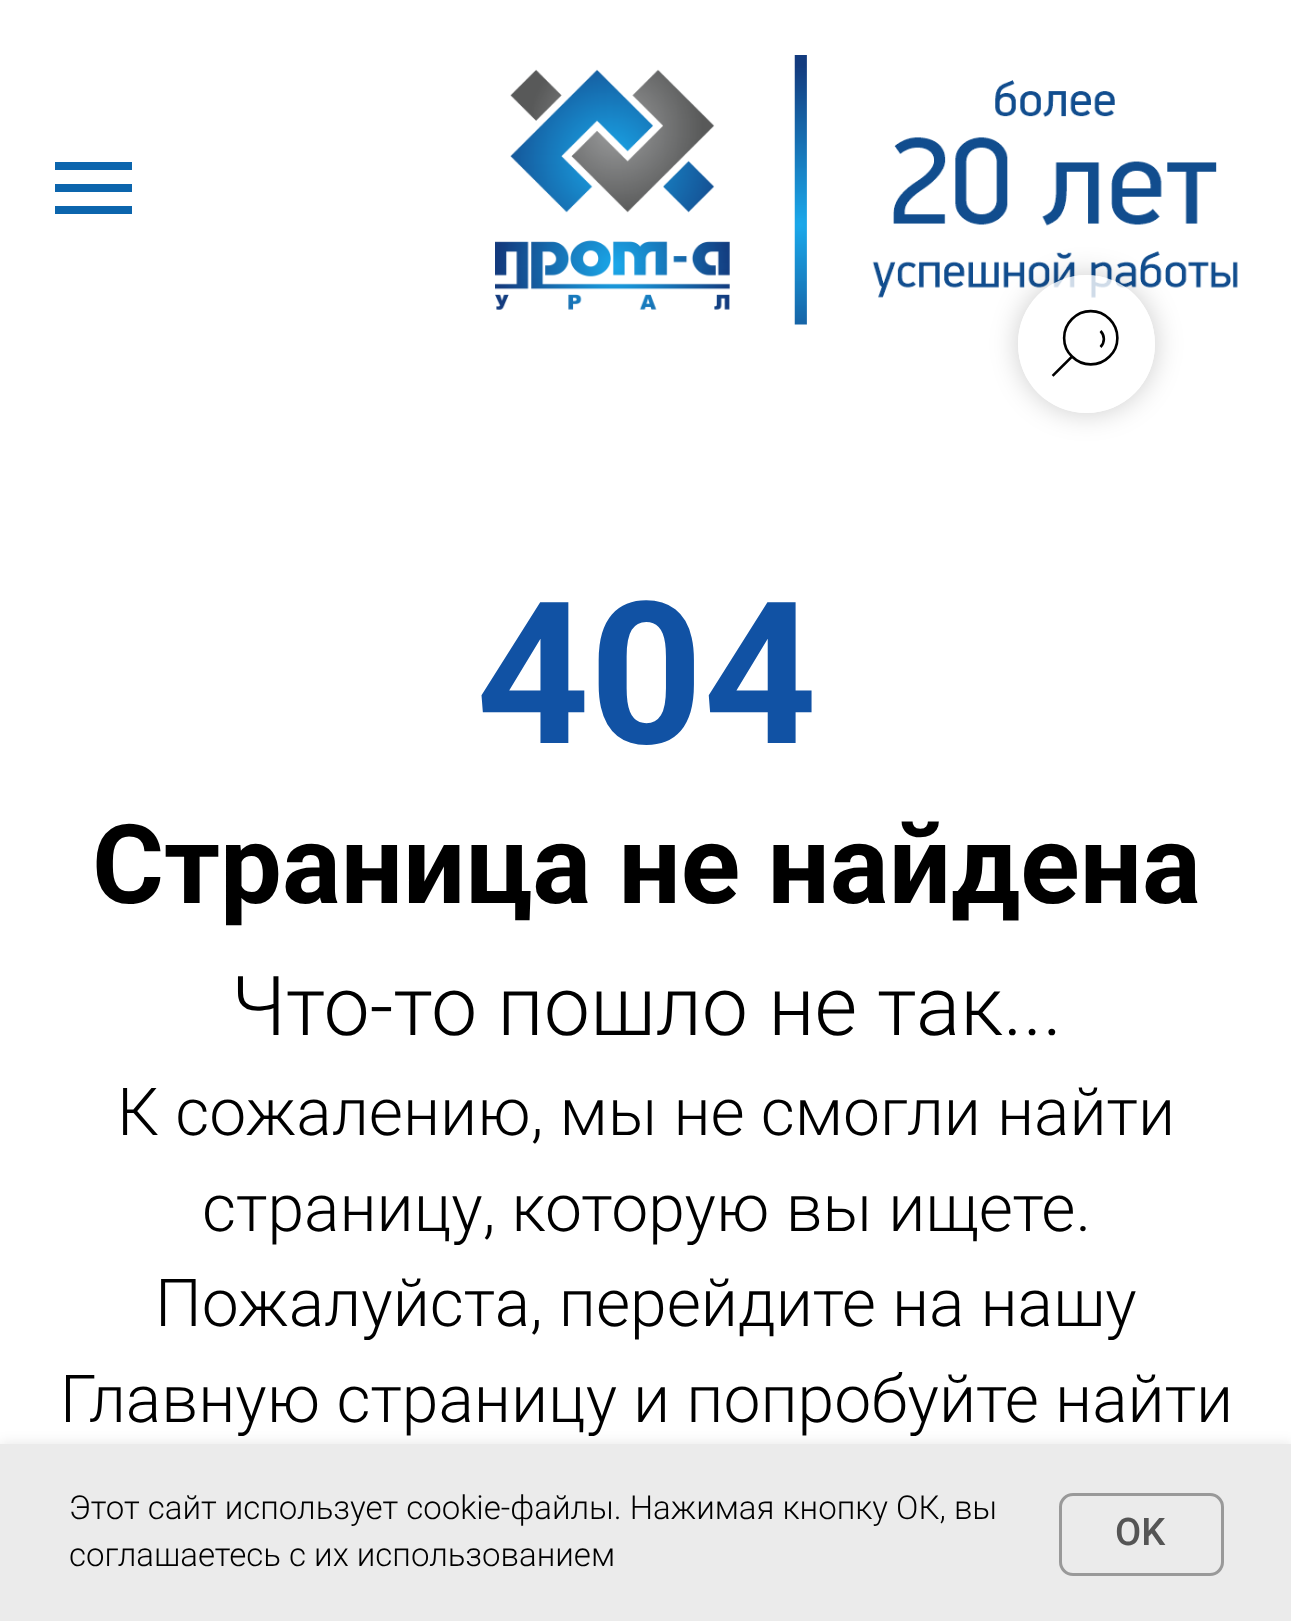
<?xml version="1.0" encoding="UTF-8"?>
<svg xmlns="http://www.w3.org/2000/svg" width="1291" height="1621">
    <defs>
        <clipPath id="clip1"><path d="M 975 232 H 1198 V 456 H 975 Z M 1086.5 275 C 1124.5 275 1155 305.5 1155 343.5 V 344.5 C 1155 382.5 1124.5 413 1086.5 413 C 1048.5 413 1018 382.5 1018 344.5 V 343.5 C 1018 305.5 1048.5 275 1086.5 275 Z" clip-rule="evenodd"/></clipPath>
        <filter id="blur1" x="-50%" y="-200%" width="200%" height="500%"><feGaussianBlur stdDeviation="14"/></filter>
        <filter id="blur2" x="-50%" y="-200%" width="200%" height="500%"><feGaussianBlur stdDeviation="7"/></filter>
    </defs>
    <rect width="100%" height="100%" fill="#FFFFFF"/>
    <rect x="55" y="162" width="77" height="8" fill="#0C65AD"/>
    <rect x="55" y="184" width="77" height="8" fill="#0C65AD"/>
    <rect x="55" y="206" width="77" height="8" fill="#0C65AD"/>
    <image x="495" y="55" width="743" height="270" href="img_01.png"/>
    <g clip-path="url(#clip1)">
        <rect x="1018" y="275" width="137" height="138" rx="68.5" fill="#000000" fill-opacity="0.2" filter="url(#blur1)"/>
    </g>
    <rect x="1018" y="275" width="137" height="138" rx="68.5" fill="#FFFFFF" fill-opacity="0.8"/>
    <path d="M 1071 357.5 L 1053.5 375" fill="none" stroke="#000000" stroke-width="2.6" stroke-linecap="square"/>
    <path d="M 1109.5 319 C 1120 329.5 1120 346.5 1109.5 356.5 C 1099 367 1082.5 367 1072 356.5 C 1061.5 346.5 1061.5 329.5 1072 319 C 1082.5 308.5 1099 308.5 1109.5 319 Z M 1100.5 331 C 1105 335.5 1105 342.5 1100.5 347" fill="none" stroke="#000000" stroke-width="2.6"/>
    <text x="476" y="743" font-family="Roboto" font-size="198" font-weight="700" fill="#1152A4">404</text>
    <text x="92" y="903" font-family="Roboto" font-size="110" font-weight="700" fill="#000000">Страница не найдена</text>
    <text x="231" y="1035" font-family="Roboto" font-size="82.5" font-weight="300" fill="#000000">Что-то пошло не так...</text>
    <text x="117" y="1135" font-family="Roboto" font-size="66" font-weight="300" fill="#000000">К сожалению, мы не смогли найти</text>
    <text x="202" y="1231" font-family="Roboto" font-size="66" font-weight="300" fill="#000000">страницу, которую вы ищете.</text>
    <text x="155" y="1326" font-family="Roboto" font-size="66" font-weight="300" fill="#000000">Пожалуйста, перейдите на нашу</text>
    <text x="60" y="1422" font-family="Roboto" font-size="66" font-weight="300" fill="#000000">Главную страницу и попробуйте найти</text>
    <rect x="0" y="1444" width="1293" height="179" fill="#000000" fill-opacity="0.1" filter="url(#blur2)"/>
    <rect x="0" y="1444" width="1291" height="177" fill="#EBEBEB"/>
    <text font-family="Roboto" font-size="33" font-weight="300" fill="#000000">
        <tspan x="69" y="1519">Этот сайт использует cookie-файлы. Нажимая кнопку ОК, вы</tspan>
        <tspan x="69" y="1566">соглашаетесь с их использованием</tspan>
    </text>
    <rect x="1060.5" y="1494.5" width="162" height="80" rx="12.5" fill="none" stroke="#999999" stroke-width="3"/>
    <text x="1115" y="1545" font-family="Roboto" font-size="38" font-weight="500" fill="#555555">OK</text>
</svg>
